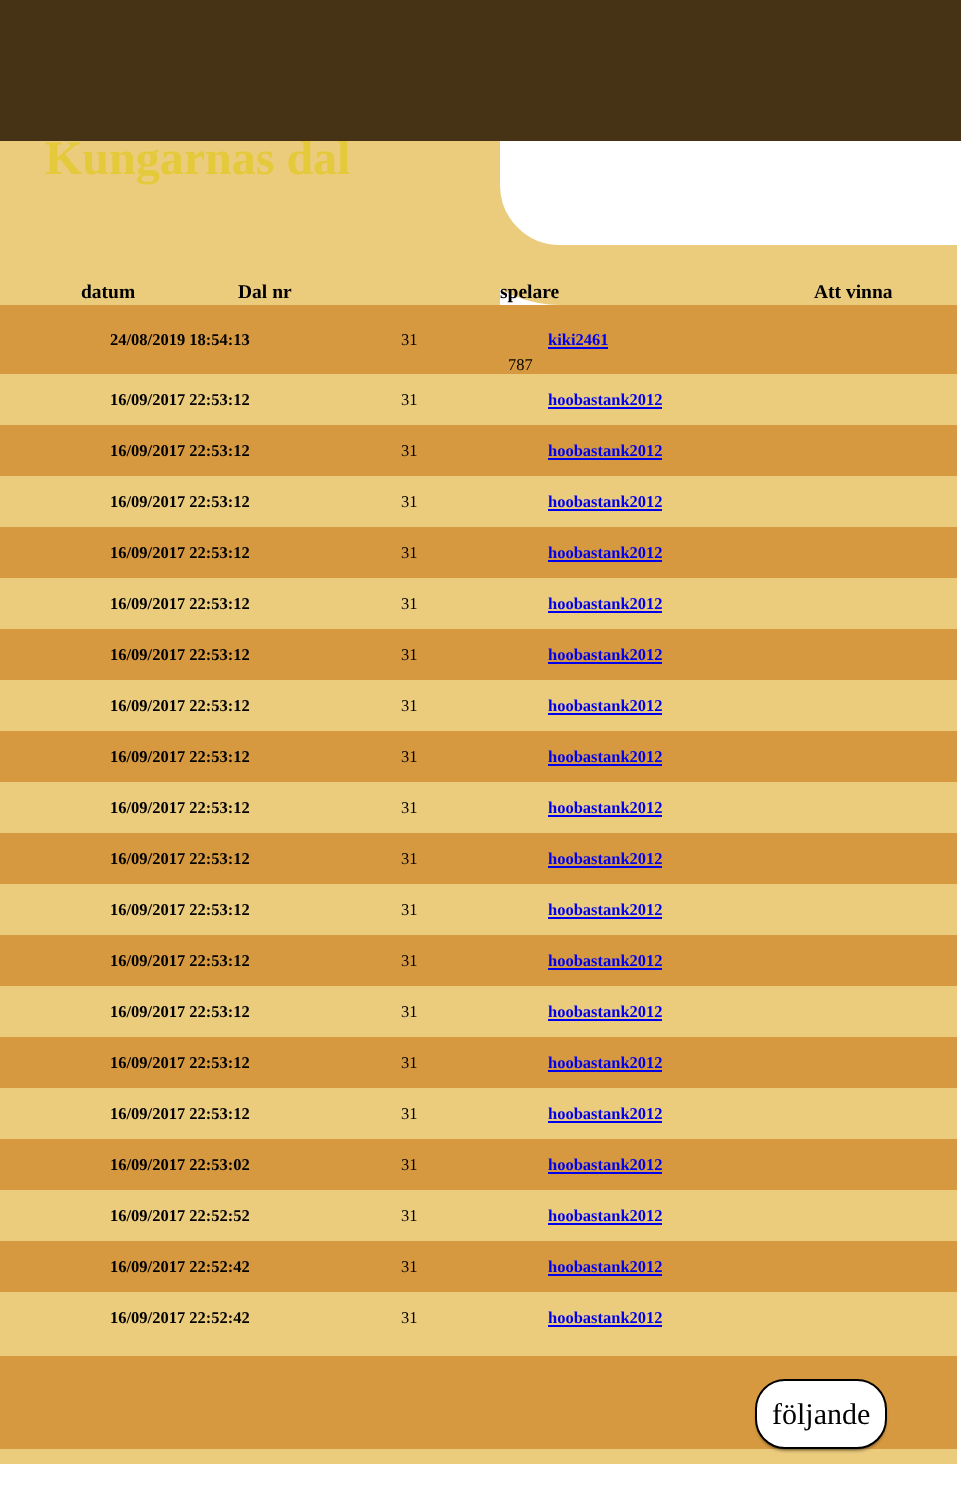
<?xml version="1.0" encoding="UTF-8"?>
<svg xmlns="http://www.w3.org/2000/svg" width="961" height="1497">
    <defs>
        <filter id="blur1" x="-50%" y="-200%" width="200%" height="500%"><feGaussianBlur stdDeviation="2"/></filter>
    </defs>
    <rect width="100%" height="100%" fill="#FFFFFF"/>
    <rect x="0" y="141" width="500" height="164" fill="#EBCB7C"/>
    <text x="45" y="174" font-family="Liberation Serif" font-size="48" font-weight="700" fill="#E4CA3A">Kungarnas dal</text>
    <rect x="470" y="-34" width="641" height="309" rx="90" fill="none" stroke="#EBCB7C" stroke-width="60"/>
    <rect x="0" y="0" width="961" height="141" fill="#463215"/>
    <text x="81" y="298" font-family="Liberation Serif" font-size="19.5" font-weight="700" fill="#000000">datum</text>
    <text x="238" y="298" font-family="Liberation Serif" font-size="19.5" font-weight="700" fill="#000000">Dal nr</text>
    <text x="500" y="298" font-family="Liberation Serif" font-size="19.5" font-weight="700" fill="#000000">spelare</text>
    <text x="814" y="298" font-family="Liberation Serif" font-size="19.5" font-weight="700" fill="#000000">Att vinna</text>
    <rect x="957" y="245" width="4" height="60" fill="#FFFFFF"/>
    <rect x="0" y="305" width="957" height="69" fill="#D79940"/>
    <text x="110" y="345" font-family="Liberation Serif" font-size="16.5" font-weight="700" fill="#000000">24/08/2019 18:54:13</text>
    <text x="401" y="345" font-family="Liberation Serif" font-size="16.5" fill="#000000">31</text>
    <text x="548" y="345" font-family="Liberation Serif" font-size="16.5" font-weight="700" fill="#0000EE">kiki2461</text>
    <rect x="548" y="347" width="60" height="2" fill="#0000EE"/>
    <text x="508" y="370" font-family="Liberation Serif" font-size="16.5" fill="#000000">787</text>
    <rect x="0" y="374" width="957" height="51" fill="#EBCB7C"/>
    <text x="110" y="405" font-family="Liberation Serif" font-size="16.5" font-weight="700" fill="#000000">16/09/2017 22:53:12</text>
    <text x="401" y="405" font-family="Liberation Serif" font-size="16.5" fill="#000000">31</text>
    <text x="548" y="405" font-family="Liberation Serif" font-size="16.5" font-weight="700" fill="#0000EE">hoobastank2012</text>
    <rect x="548" y="407" width="114" height="2" fill="#0000EE"/>
    <rect x="0" y="425" width="957" height="51" fill="#D79940"/>
    <text x="110" y="456" font-family="Liberation Serif" font-size="16.5" font-weight="700" fill="#000000">16/09/2017 22:53:12</text>
    <text x="401" y="456" font-family="Liberation Serif" font-size="16.5" fill="#000000">31</text>
    <text x="548" y="456" font-family="Liberation Serif" font-size="16.5" font-weight="700" fill="#0000EE">hoobastank2012</text>
    <rect x="548" y="458" width="114" height="2" fill="#0000EE"/>
    <rect x="0" y="476" width="957" height="51" fill="#EBCB7C"/>
    <text x="110" y="507" font-family="Liberation Serif" font-size="16.5" font-weight="700" fill="#000000">16/09/2017 22:53:12</text>
    <text x="401" y="507" font-family="Liberation Serif" font-size="16.5" fill="#000000">31</text>
    <text x="548" y="507" font-family="Liberation Serif" font-size="16.5" font-weight="700" fill="#0000EE">hoobastank2012</text>
    <rect x="548" y="509" width="114" height="2" fill="#0000EE"/>
    <rect x="0" y="527" width="957" height="51" fill="#D79940"/>
    <text x="110" y="558" font-family="Liberation Serif" font-size="16.5" font-weight="700" fill="#000000">16/09/2017 22:53:12</text>
    <text x="401" y="558" font-family="Liberation Serif" font-size="16.5" fill="#000000">31</text>
    <text x="548" y="558" font-family="Liberation Serif" font-size="16.5" font-weight="700" fill="#0000EE">hoobastank2012</text>
    <rect x="548" y="560" width="114" height="2" fill="#0000EE"/>
    <rect x="0" y="578" width="957" height="51" fill="#EBCB7C"/>
    <text x="110" y="609" font-family="Liberation Serif" font-size="16.5" font-weight="700" fill="#000000">16/09/2017 22:53:12</text>
    <text x="401" y="609" font-family="Liberation Serif" font-size="16.5" fill="#000000">31</text>
    <text x="548" y="609" font-family="Liberation Serif" font-size="16.5" font-weight="700" fill="#0000EE">hoobastank2012</text>
    <rect x="548" y="611" width="114" height="2" fill="#0000EE"/>
    <rect x="0" y="629" width="957" height="51" fill="#D79940"/>
    <text x="110" y="660" font-family="Liberation Serif" font-size="16.5" font-weight="700" fill="#000000">16/09/2017 22:53:12</text>
    <text x="401" y="660" font-family="Liberation Serif" font-size="16.5" fill="#000000">31</text>
    <text x="548" y="660" font-family="Liberation Serif" font-size="16.5" font-weight="700" fill="#0000EE">hoobastank2012</text>
    <rect x="548" y="662" width="114" height="2" fill="#0000EE"/>
    <rect x="0" y="680" width="957" height="51" fill="#EBCB7C"/>
    <text x="110" y="711" font-family="Liberation Serif" font-size="16.5" font-weight="700" fill="#000000">16/09/2017 22:53:12</text>
    <text x="401" y="711" font-family="Liberation Serif" font-size="16.5" fill="#000000">31</text>
    <text x="548" y="711" font-family="Liberation Serif" font-size="16.5" font-weight="700" fill="#0000EE">hoobastank2012</text>
    <rect x="548" y="713" width="114" height="2" fill="#0000EE"/>
    <rect x="0" y="731" width="957" height="51" fill="#D79940"/>
    <text x="110" y="762" font-family="Liberation Serif" font-size="16.5" font-weight="700" fill="#000000">16/09/2017 22:53:12</text>
    <text x="401" y="762" font-family="Liberation Serif" font-size="16.5" fill="#000000">31</text>
    <text x="548" y="762" font-family="Liberation Serif" font-size="16.5" font-weight="700" fill="#0000EE">hoobastank2012</text>
    <rect x="548" y="764" width="114" height="2" fill="#0000EE"/>
    <rect x="0" y="782" width="957" height="51" fill="#EBCB7C"/>
    <text x="110" y="813" font-family="Liberation Serif" font-size="16.5" font-weight="700" fill="#000000">16/09/2017 22:53:12</text>
    <text x="401" y="813" font-family="Liberation Serif" font-size="16.5" fill="#000000">31</text>
    <text x="548" y="813" font-family="Liberation Serif" font-size="16.5" font-weight="700" fill="#0000EE">hoobastank2012</text>
    <rect x="548" y="815" width="114" height="2" fill="#0000EE"/>
    <rect x="0" y="833" width="957" height="51" fill="#D79940"/>
    <text x="110" y="864" font-family="Liberation Serif" font-size="16.5" font-weight="700" fill="#000000">16/09/2017 22:53:12</text>
    <text x="401" y="864" font-family="Liberation Serif" font-size="16.5" fill="#000000">31</text>
    <text x="548" y="864" font-family="Liberation Serif" font-size="16.5" font-weight="700" fill="#0000EE">hoobastank2012</text>
    <rect x="548" y="866" width="114" height="2" fill="#0000EE"/>
    <rect x="0" y="884" width="957" height="51" fill="#EBCB7C"/>
    <text x="110" y="915" font-family="Liberation Serif" font-size="16.5" font-weight="700" fill="#000000">16/09/2017 22:53:12</text>
    <text x="401" y="915" font-family="Liberation Serif" font-size="16.5" fill="#000000">31</text>
    <text x="548" y="915" font-family="Liberation Serif" font-size="16.5" font-weight="700" fill="#0000EE">hoobastank2012</text>
    <rect x="548" y="917" width="114" height="2" fill="#0000EE"/>
    <rect x="0" y="935" width="957" height="51" fill="#D79940"/>
    <text x="110" y="966" font-family="Liberation Serif" font-size="16.5" font-weight="700" fill="#000000">16/09/2017 22:53:12</text>
    <text x="401" y="966" font-family="Liberation Serif" font-size="16.5" fill="#000000">31</text>
    <text x="548" y="966" font-family="Liberation Serif" font-size="16.5" font-weight="700" fill="#0000EE">hoobastank2012</text>
    <rect x="548" y="968" width="114" height="2" fill="#0000EE"/>
    <rect x="0" y="986" width="957" height="51" fill="#EBCB7C"/>
    <text x="110" y="1017" font-family="Liberation Serif" font-size="16.5" font-weight="700" fill="#000000">16/09/2017 22:53:12</text>
    <text x="401" y="1017" font-family="Liberation Serif" font-size="16.5" fill="#000000">31</text>
    <text x="548" y="1017" font-family="Liberation Serif" font-size="16.5" font-weight="700" fill="#0000EE">hoobastank2012</text>
    <rect x="548" y="1019" width="114" height="2" fill="#0000EE"/>
    <rect x="0" y="1037" width="957" height="51" fill="#D79940"/>
    <text x="110" y="1068" font-family="Liberation Serif" font-size="16.5" font-weight="700" fill="#000000">16/09/2017 22:53:12</text>
    <text x="401" y="1068" font-family="Liberation Serif" font-size="16.5" fill="#000000">31</text>
    <text x="548" y="1068" font-family="Liberation Serif" font-size="16.5" font-weight="700" fill="#0000EE">hoobastank2012</text>
    <rect x="548" y="1070" width="114" height="2" fill="#0000EE"/>
    <rect x="0" y="1088" width="957" height="51" fill="#EBCB7C"/>
    <text x="110" y="1119" font-family="Liberation Serif" font-size="16.5" font-weight="700" fill="#000000">16/09/2017 22:53:12</text>
    <text x="401" y="1119" font-family="Liberation Serif" font-size="16.5" fill="#000000">31</text>
    <text x="548" y="1119" font-family="Liberation Serif" font-size="16.5" font-weight="700" fill="#0000EE">hoobastank2012</text>
    <rect x="548" y="1121" width="114" height="2" fill="#0000EE"/>
    <rect x="0" y="1139" width="957" height="51" fill="#D79940"/>
    <text x="110" y="1170" font-family="Liberation Serif" font-size="16.5" font-weight="700" fill="#000000">16/09/2017 22:53:02</text>
    <text x="401" y="1170" font-family="Liberation Serif" font-size="16.5" fill="#000000">31</text>
    <text x="548" y="1170" font-family="Liberation Serif" font-size="16.5" font-weight="700" fill="#0000EE">hoobastank2012</text>
    <rect x="548" y="1172" width="114" height="2" fill="#0000EE"/>
    <rect x="0" y="1190" width="957" height="51" fill="#EBCB7C"/>
    <text x="110" y="1221" font-family="Liberation Serif" font-size="16.5" font-weight="700" fill="#000000">16/09/2017 22:52:52</text>
    <text x="401" y="1221" font-family="Liberation Serif" font-size="16.5" fill="#000000">31</text>
    <text x="548" y="1221" font-family="Liberation Serif" font-size="16.5" font-weight="700" fill="#0000EE">hoobastank2012</text>
    <rect x="548" y="1223" width="114" height="2" fill="#0000EE"/>
    <rect x="0" y="1241" width="957" height="51" fill="#D79940"/>
    <text x="110" y="1272" font-family="Liberation Serif" font-size="16.5" font-weight="700" fill="#000000">16/09/2017 22:52:42</text>
    <text x="401" y="1272" font-family="Liberation Serif" font-size="16.5" fill="#000000">31</text>
    <text x="548" y="1272" font-family="Liberation Serif" font-size="16.5" font-weight="700" fill="#0000EE">hoobastank2012</text>
    <rect x="548" y="1274" width="114" height="2" fill="#0000EE"/>
    <rect x="0" y="1292" width="957" height="172" fill="#EBCB7C"/>
    <text x="110" y="1323" font-family="Liberation Serif" font-size="16.5" font-weight="700" fill="#000000">16/09/2017 22:52:42</text>
    <text x="401" y="1323" font-family="Liberation Serif" font-size="16.5" fill="#000000">31</text>
    <text x="548" y="1323" font-family="Liberation Serif" font-size="16.5" font-weight="700" fill="#0000EE">hoobastank2012</text>
    <rect x="548" y="1325" width="114" height="2" fill="#0000EE"/>
    <rect x="0" y="1356" width="957" height="93" fill="#D79940"/>
    <rect x="758" y="1385" width="126" height="64" rx="27" fill="#000000" filter="url(#blur1)"/>
    <rect x="756" y="1380" width="130" height="68" rx="29" fill="#FFFFFF" stroke="#000000" stroke-width="2"/>
    <text x="772" y="1424" font-family="Liberation Serif" font-size="30" fill="#000000">följande</text>
</svg>
